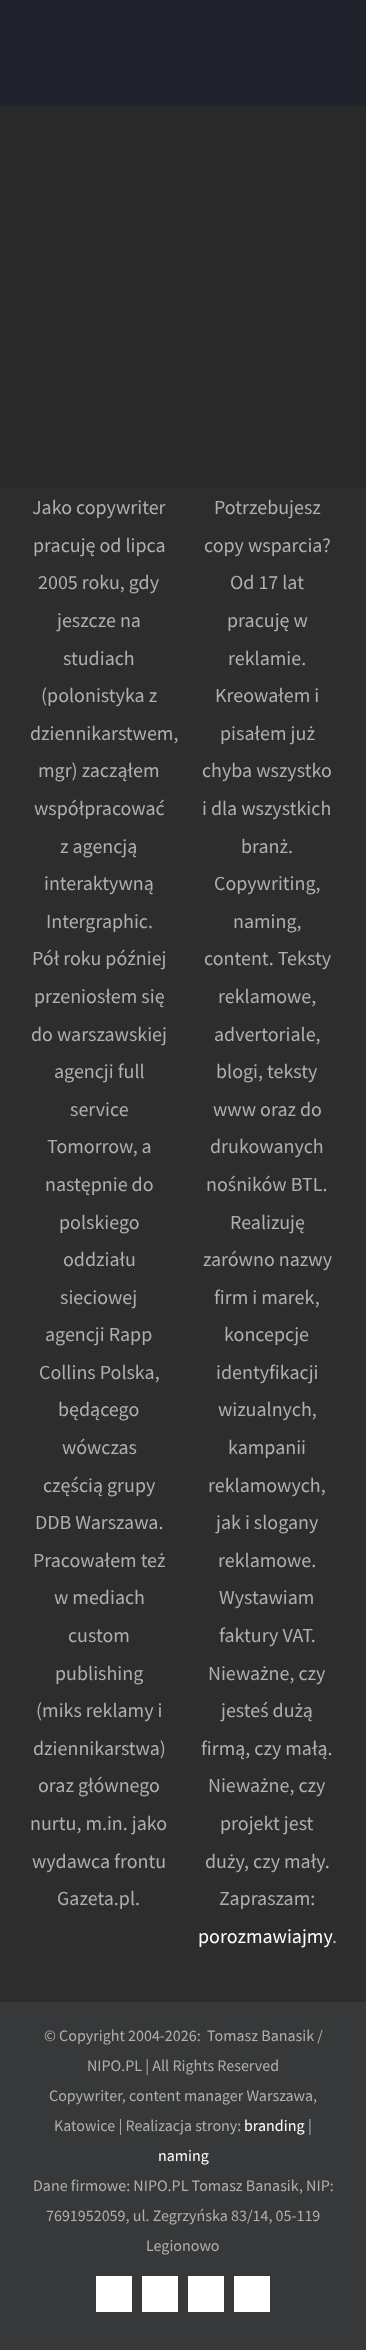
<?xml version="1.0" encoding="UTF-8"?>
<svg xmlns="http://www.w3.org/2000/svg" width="366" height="2350">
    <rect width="100%" height="100%" fill="#2D2D2D"/>
    <rect x="0" y="0" width="366" height="106" fill="#20232C"/>
    <rect x="0" y="106" width="366" height="382" fill="#29292A"/>
    <text x="32" y="514" font-family="Source Sans Pro" font-size="20" fill="#AFAFAF">Jako copywriter</text>
    <text x="33" y="552" font-family="Source Sans Pro" font-size="20" fill="#AFAFAF">pracuję od lipca</text>
    <text x="38" y="589" font-family="Source Sans Pro" font-size="20" fill="#AFAFAF">2005 roku, gdy</text>
    <text x="57" y="627" font-family="Source Sans Pro" font-size="20" fill="#AFAFAF">jeszcze na</text>
    <text x="63" y="665" font-family="Source Sans Pro" font-size="20" fill="#AFAFAF">studiach</text>
    <text x="41" y="702" font-family="Source Sans Pro" font-size="20" fill="#AFAFAF">(polonistyka z</text>
    <text x="30" y="740" font-family="Source Sans Pro" font-size="20" fill="#AFAFAF">dziennikarstwem,</text>
    <text x="38" y="777" font-family="Source Sans Pro" font-size="20" fill="#AFAFAF">mgr) zacząłem</text>
    <text x="34" y="815" font-family="Source Sans Pro" font-size="20" fill="#AFAFAF">współpracować</text>
    <text x="60" y="853" font-family="Source Sans Pro" font-size="20" fill="#AFAFAF">z agencją</text>
    <text x="44" y="890" font-family="Source Sans Pro" font-size="20" fill="#AFAFAF">interaktywną</text>
    <text x="46" y="928" font-family="Source Sans Pro" font-size="20" fill="#AFAFAF">Intergraphic.</text>
    <text x="32" y="965" font-family="Source Sans Pro" font-size="20" fill="#AFAFAF">Pół roku później</text>
    <text x="34" y="1003" font-family="Source Sans Pro" font-size="20" fill="#AFAFAF">przeniosłem się</text>
    <text x="31" y="1041" font-family="Source Sans Pro" font-size="20" fill="#AFAFAF">do warszawskiej</text>
    <text x="54" y="1078" font-family="Source Sans Pro" font-size="20" fill="#AFAFAF">agencji full</text>
    <text x="70" y="1116" font-family="Source Sans Pro" font-size="20" fill="#AFAFAF">service</text>
    <text x="47" y="1153" font-family="Source Sans Pro" font-size="20" fill="#AFAFAF">Tomorrow, a</text>
    <text x="45" y="1191" font-family="Source Sans Pro" font-size="20" fill="#AFAFAF">następnie do</text>
    <text x="59" y="1229" font-family="Source Sans Pro" font-size="20" fill="#AFAFAF">polskiego</text>
    <text x="63" y="1266" font-family="Source Sans Pro" font-size="20" fill="#AFAFAF">oddziału</text>
    <text x="60" y="1304" font-family="Source Sans Pro" font-size="20" fill="#AFAFAF">sieciowej</text>
    <text x="45" y="1341" font-family="Source Sans Pro" font-size="20" fill="#AFAFAF">agencji Rapp</text>
    <text x="39" y="1379" font-family="Source Sans Pro" font-size="20" fill="#AFAFAF">Collins Polska,</text>
    <text x="58" y="1416" font-family="Source Sans Pro" font-size="20" fill="#AFAFAF">będącego</text>
    <text x="62" y="1454" font-family="Source Sans Pro" font-size="20" fill="#AFAFAF">wówczas</text>
    <text x="43" y="1492" font-family="Source Sans Pro" font-size="20" fill="#AFAFAF">częścią grupy</text>
    <text x="35" y="1529" font-family="Source Sans Pro" font-size="20" fill="#AFAFAF">DDB Warszawa.</text>
    <text x="33" y="1567" font-family="Source Sans Pro" font-size="20" fill="#AFAFAF">Pracowałem też</text>
    <text x="54" y="1604" font-family="Source Sans Pro" font-size="20" fill="#AFAFAF">w mediach</text>
    <text x="68" y="1642" font-family="Source Sans Pro" font-size="20" fill="#AFAFAF">custom</text>
    <text x="55" y="1680" font-family="Source Sans Pro" font-size="20" fill="#AFAFAF">publishing</text>
    <text x="36" y="1717" font-family="Source Sans Pro" font-size="20" fill="#AFAFAF">(miks reklamy i</text>
    <text x="33" y="1755" font-family="Source Sans Pro" font-size="20" fill="#AFAFAF">dziennikarstwa)</text>
    <text x="38" y="1792" font-family="Source Sans Pro" font-size="20" fill="#AFAFAF">oraz głównego</text>
    <text x="30" y="1830" font-family="Source Sans Pro" font-size="20" fill="#AFAFAF">nurtu, m.in. jako</text>
    <text x="32" y="1868" font-family="Source Sans Pro" font-size="20" fill="#AFAFAF">wydawca frontu</text>
    <text x="57" y="1905" font-family="Source Sans Pro" font-size="20" fill="#AFAFAF">Gazeta.pl.</text>
    <text x="214" y="514" font-family="Source Sans Pro" font-size="20" fill="#AFAFAF">Potrzebujesz</text>
    <text x="204" y="552" font-family="Source Sans Pro" font-size="20" fill="#AFAFAF">copy wsparcia?</text>
    <text x="230" y="589" font-family="Source Sans Pro" font-size="20" fill="#AFAFAF">Od 17 lat</text>
    <text x="227" y="627" font-family="Source Sans Pro" font-size="20" fill="#AFAFAF">pracuję w</text>
    <text x="228" y="665" font-family="Source Sans Pro" font-size="20" fill="#AFAFAF">reklamie.</text>
    <text x="215" y="702" font-family="Source Sans Pro" font-size="20" fill="#AFAFAF">Kreowałem i</text>
    <text x="220" y="740" font-family="Source Sans Pro" font-size="20" fill="#AFAFAF">pisałem już</text>
    <text font-family="Source Sans Pro" font-size="20" fill="#AFAFAF">
        <tspan x="202" y="777">chyba wszystko</tspan>
        <tspan x="202" y="815">i dla wszystkich</tspan>
    </text>
    <text x="241" y="853" font-family="Source Sans Pro" font-size="20" fill="#AFAFAF">branż.</text>
    <text x="214" y="890" font-family="Source Sans Pro" font-size="20" fill="#AFAFAF">Copywriting,</text>
    <text x="233" y="928" font-family="Source Sans Pro" font-size="20" fill="#AFAFAF">naming,</text>
    <text x="204" y="965" font-family="Source Sans Pro" font-size="20" fill="#AFAFAF">content. Teksty</text>
    <text x="218" y="1003" font-family="Source Sans Pro" font-size="20" fill="#AFAFAF">reklamowe,</text>
    <text x="214" y="1041" font-family="Source Sans Pro" font-size="20" fill="#AFAFAF">advertoriale,</text>
    <text x="216" y="1078" font-family="Source Sans Pro" font-size="20" fill="#AFAFAF">blogi, teksty</text>
    <text x="213" y="1116" font-family="Source Sans Pro" font-size="20" fill="#AFAFAF">www oraz do</text>
    <text x="210" y="1153" font-family="Source Sans Pro" font-size="20" fill="#AFAFAF">drukowanych</text>
    <text x="206" y="1191" font-family="Source Sans Pro" font-size="20" fill="#AFAFAF">nośników BTL.</text>
    <text x="230" y="1229" font-family="Source Sans Pro" font-size="20" fill="#AFAFAF">Realizuję</text>
    <text x="203" y="1266" font-family="Source Sans Pro" font-size="20" fill="#AFAFAF">zarówno nazwy</text>
    <text x="214" y="1304" font-family="Source Sans Pro" font-size="20" fill="#AFAFAF">firm i marek,</text>
    <text x="224" y="1341" font-family="Source Sans Pro" font-size="20" fill="#AFAFAF">koncepcje</text>
    <text x="216" y="1379" font-family="Source Sans Pro" font-size="20" fill="#AFAFAF">identyfikacji</text>
    <text x="218" y="1416" font-family="Source Sans Pro" font-size="20" fill="#AFAFAF">wizualnych,</text>
    <text x="228" y="1454" font-family="Source Sans Pro" font-size="20" fill="#AFAFAF">kampanii</text>
    <text x="208" y="1492" font-family="Source Sans Pro" font-size="20" fill="#AFAFAF">reklamowych,</text>
    <text x="216" y="1529" font-family="Source Sans Pro" font-size="20" fill="#AFAFAF">jak i slogany</text>
    <text x="218" y="1567" font-family="Source Sans Pro" font-size="20" fill="#AFAFAF">reklamowe.</text>
    <text font-family="Source Sans Pro" font-size="20" fill="#AFAFAF">
        <tspan x="219" y="1604">Wystawiam</tspan>
        <tspan x="219" y="1642">faktury VAT.</tspan>
    </text>
    <text x="208" y="1680" font-family="Source Sans Pro" font-size="20" fill="#AFAFAF">Nieważne, czy</text>
    <text x="221" y="1717" font-family="Source Sans Pro" font-size="20" fill="#AFAFAF">jesteś dużą</text>
    <text x="201" y="1755" font-family="Source Sans Pro" font-size="20" fill="#AFAFAF">firmą, czy małą.</text>
    <text x="208" y="1792" font-family="Source Sans Pro" font-size="20" fill="#AFAFAF">Nieważne, czy</text>
    <text x="220" y="1830" font-family="Source Sans Pro" font-size="20" fill="#AFAFAF">projekt jest</text>
    <text x="205" y="1868" font-family="Source Sans Pro" font-size="20" fill="#AFAFAF">duży, czy mały.</text>
    <text x="219" y="1905" font-family="Source Sans Pro" font-size="20" fill="#AFAFAF">Zapraszam:</text>
    <text x="198" y="1943" font-family="Source Sans Pro" font-size="20" fill="#FFFFFF">porozmawiajmy</text>
    <text x="332" y="1943" font-family="Source Sans Pro" font-size="20" fill="#AFAFAF">.</text>
    <rect x="0" y="2002" width="366" height="348" fill="#363839"/>
    <text x="44" y="2041" font-family="Source Sans Pro" font-size="16" fill="#AFAFAF" xml:space="preserve">© Copyright 2004-2026:  Tomasz Banasik /</text>
    <text x="87" y="2071" font-family="Source Sans Pro" font-size="16" fill="#AFAFAF">NIPO.PL | All Rights Reserved</text>
    <text x="49" y="2101" font-family="Source Sans Pro" font-size="16" fill="#AFAFAF">Copywriter, content manager Warszawa,</text>
    <text x="54" y="2131" font-family="Source Sans Pro" font-size="16" fill="#AFAFAF">Katowice | Realizacja strony:</text>
    <text x="244" y="2131" font-family="Source Sans Pro" font-size="16" fill="#FFFFFF">branding</text>
    <text x="308" y="2131" font-family="Source Sans Pro" font-size="16" fill="#AFAFAF">|</text>
    <text x="158" y="2161" font-family="Source Sans Pro" font-size="16" fill="#FFFFFF">naming</text>
    <text x="33" y="2191" font-family="Source Sans Pro" font-size="16" fill="#AFAFAF">Dane firmowe: NIPO.PL Tomasz Banasik, NIP:</text>
    <text x="46" y="2221" font-family="Source Sans Pro" font-size="16" fill="#AFAFAF">7691952059, ul. Zegrzyńska 83/14, 05-119</text>
    <text x="146" y="2251" font-family="Source Sans Pro" font-size="16" fill="#AFAFAF">Legionowo</text>
    <rect x="96" y="2276" width="36" height="36" fill="#FFFFFF"/>
    <rect x="142" y="2276" width="36" height="36" fill="#FFFFFF"/>
    <rect x="188" y="2276" width="36" height="36" fill="#FFFFFF"/>
    <rect x="234" y="2276" width="36" height="36" fill="#FFFFFF"/>
</svg>
